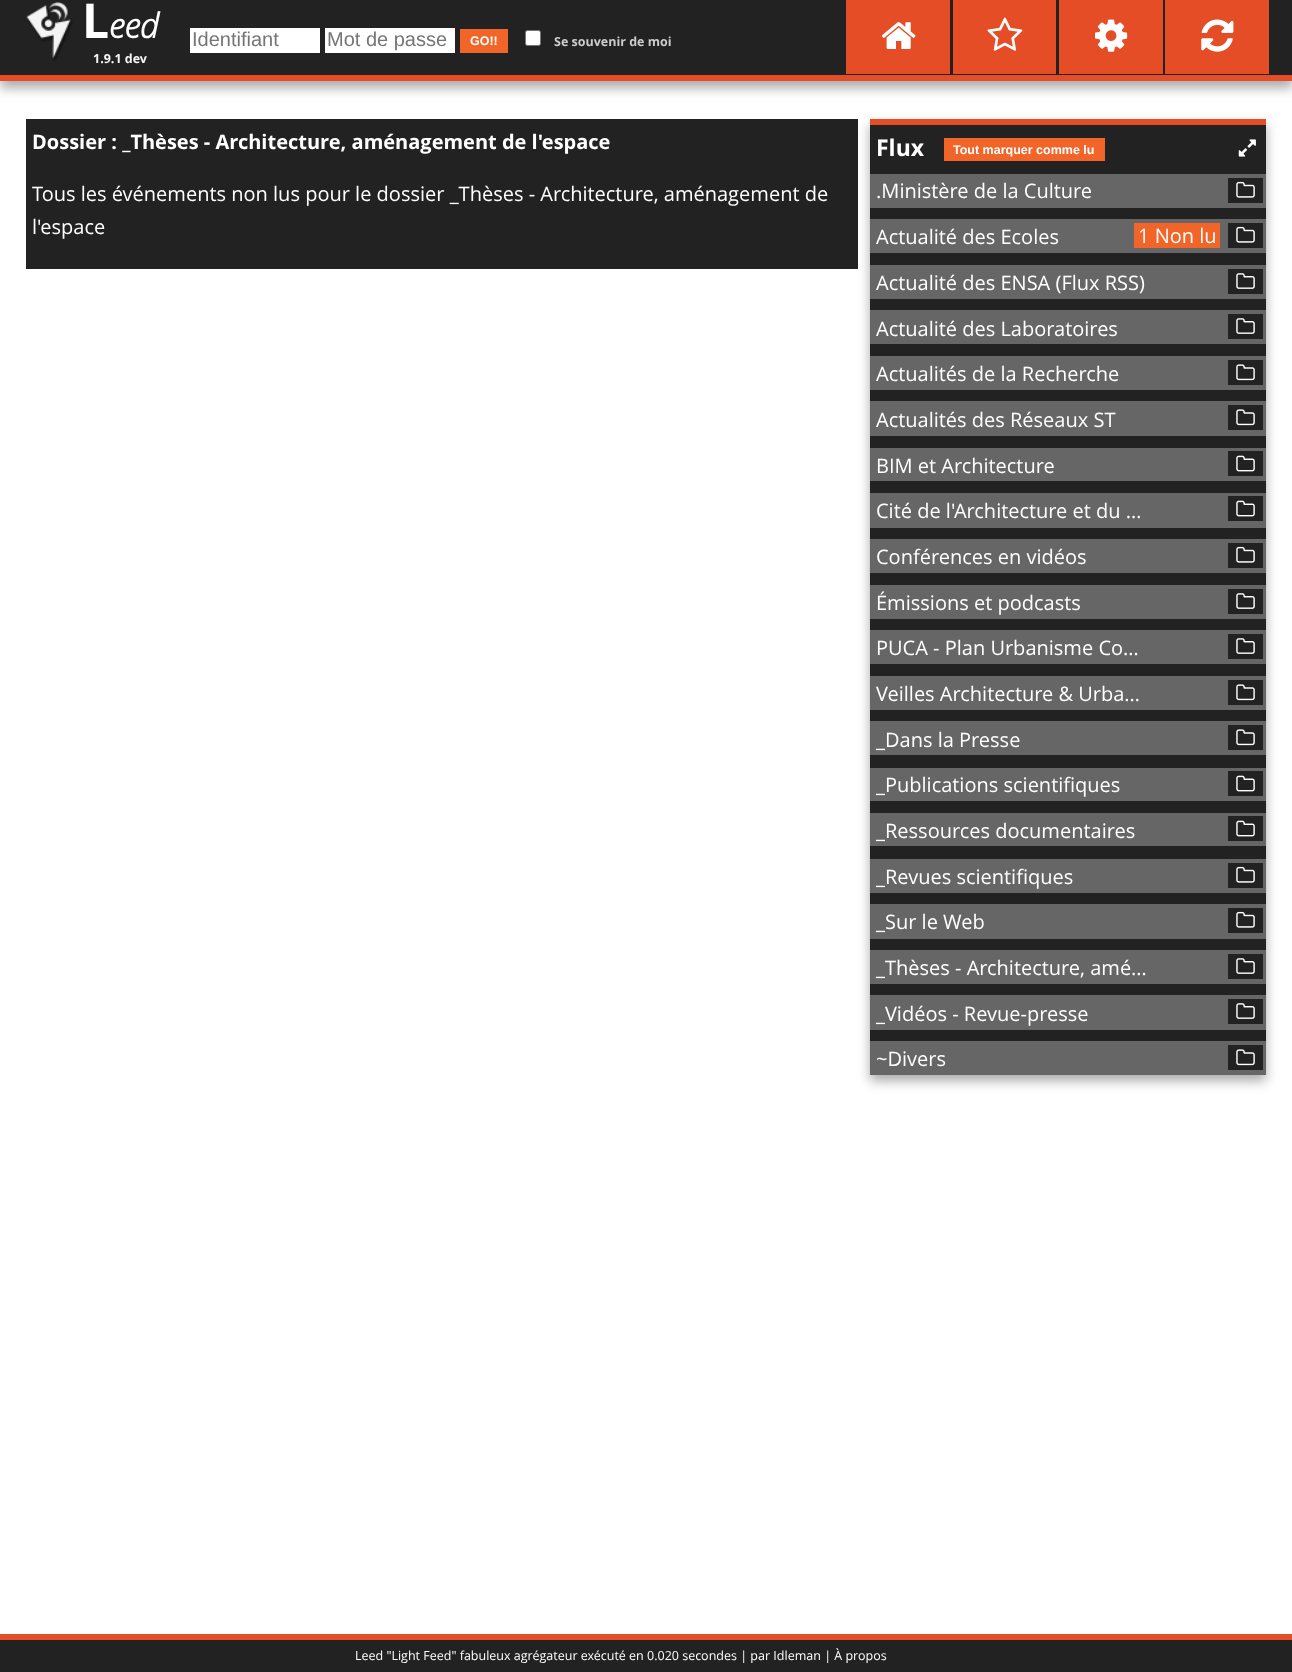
<?xml version="1.0" encoding="UTF-8"?>
<svg xmlns="http://www.w3.org/2000/svg" width="1292" height="1672">
    <defs>
        <filter id="blur1" x="-50%" y="-200%" width="200%" height="500%"><feGaussianBlur stdDeviation="6"/></filter>
    </defs>
    <rect width="100%" height="100%" fill="#FFFFFF"/>
    <rect x="0" y="4" width="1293" height="84" fill="#AAAAAA" filter="url(#blur1)"/>
    <rect x="0" y="0" width="1292" height="75" fill="#222222"/>
    <rect x="0" y="75" width="1292" height="6" fill="#E44D26"/>
    <image x="26" y="2" width="47" height="59" href="img_01.png"/>
    <text x="82" y="38" font-family="Open Sans" font-size="48" font-weight="700" fill="#FFFFFF">L</text>
    <text x="109" y="38" font-family="Open Sans" font-size="34" font-weight="700" font-style="italic" fill="#FFFFFF">eed</text>
    <text x="93" y="63" font-family="Open Sans" font-size="12.5" font-weight="700" fill="#F5F5F5">1.9.1 dev</text>
    <rect x="190" y="28" width="130" height="25" fill="#FFFFFF"/>
    <text x="192" y="46" font-family="Liberation Sans" font-size="20" fill="#757575">Identifiant</text>
    <rect x="325" y="28" width="130" height="25" fill="#FFFFFF"/>
    <text x="327" y="46" font-family="Liberation Sans" font-size="20" fill="#757575">Mot de passe</text>
    <rect x="460" y="29" width="48" height="24" fill="#F16529"/>
    <text x="470" y="45" font-family="Liberation Sans" font-size="12.5" font-weight="700" fill="#FFFFFF">GO!!</text>
    <rect x="525.5" y="30.5" width="15" height="15" rx="2" fill="#FFFFFF" stroke="#767676"/>
    <text x="554" y="46" font-family="Open Sans" font-size="12.5" font-weight="700" fill="#CCCCCC">Se souvenir de moi</text>
    <rect x="846" y="0" width="104" height="74" fill="#E44D26"/>
    <image x="881" y="22" width="35" height="27" href="img_02.png"/>
    <rect x="953" y="0" width="103" height="74" fill="#E44D26"/>
    <image x="987" y="17" width="36" height="34" href="img_03.png"/>
    <rect x="1059" y="0" width="104" height="74" fill="#E44D26"/>
    <image x="1095" y="19" width="33" height="33" href="img_04.png"/>
    <rect x="1165" y="0" width="104" height="74" fill="#E44D26"/>
    <image x="1201" y="19" width="33" height="33" href="img_05.png"/>
    <rect x="870" y="125" width="396" height="956" fill="#AAAAAA" filter="url(#blur1)"/>
    <rect x="26" y="119" width="832" height="150" fill="#222222"/>
    <text x="32" y="149" font-family="Open Sans" font-size="20" font-weight="700" fill="#FFFFFF">Dossier : _Thèses - Architecture, aménagement de l'espace</text>
    <text font-family="Open Sans" font-size="20" fill="#FFFFFF">
        <tspan x="32" y="201">Tous les événements non lus pour le dossier _Thèses - Architecture, aménagement de</tspan>
        <tspan x="32" y="234">l'espace</tspan>
    </text>
    <rect x="870" y="125" width="396" height="916" fill="#222222"/>
    <rect x="870" y="119" width="396" height="6" fill="#E44D26"/>
    <text x="876" y="156" font-family="Open Sans" font-size="23" font-weight="700" fill="#FFFFFF">Flux</text>
    <rect x="944" y="138" width="161" height="23" fill="#F16529"/>
    <text x="953" y="154" font-family="Liberation Sans" font-size="12.5" font-weight="700" fill="#FFFFFF">Tout marquer comme lu</text>
    <image x="1238" y="139" width="18" height="18" href="img_06.png"/>
    <rect x="870" y="174" width="396" height="34" fill="#666666"/>
    <text x="876" y="198" font-family="Open Sans" font-size="20" fill="#FFFFFF">.Ministère de la Culture</text>
    <rect x="1228" y="178" width="35" height="25" fill="#222222"/>
    <image x="1236" y="181" width="19" height="17" href="img_07.png"/>
    <rect x="870" y="219" width="396" height="34" fill="#666666"/>
    <text x="876" y="244" font-family="Open Sans" font-size="20" fill="#FFFFFF">Actualité des Ecoles</text>
    <rect x="1134" y="223" width="86" height="25" fill="#F16529"/>
    <text x="1138" y="243" font-family="Open Sans" font-size="20" fill="#FFFFFF">1 Non lu</text>
    <rect x="1228" y="223" width="35" height="25" fill="#222222"/>
    <image x="1236" y="226" width="19" height="17" href="img_07.png"/>
    <rect x="870" y="265" width="396" height="34" fill="#666666"/>
    <text x="876" y="290" font-family="Open Sans" font-size="20" fill="#FFFFFF">Actualité des ENSA (Flux RSS)</text>
    <rect x="1228" y="269" width="35" height="25" fill="#222222"/>
    <image x="1236" y="273" width="19" height="16" href="img_08.png"/>
    <rect x="870" y="310" width="396" height="34" fill="#666666"/>
    <text x="876" y="336" font-family="Open Sans" font-size="20" fill="#FFFFFF">Actualité des Laboratoires</text>
    <rect x="1228" y="314" width="35" height="25" fill="#222222"/>
    <image x="1236" y="318" width="19" height="16" href="img_08.png"/>
    <rect x="870" y="356" width="396" height="34" fill="#666666"/>
    <text x="876" y="381" font-family="Open Sans" font-size="20" fill="#FFFFFF">Actualités de la Recherche</text>
    <rect x="1228" y="360" width="35" height="25" fill="#222222"/>
    <image x="1236" y="364" width="19" height="17" href="img_09.png"/>
    <rect x="870" y="401" width="396" height="35" fill="#666666"/>
    <text x="876" y="427" font-family="Open Sans" font-size="20" fill="#FFFFFF">Actualités des Réseaux ST</text>
    <rect x="1228" y="405" width="35" height="25" fill="#222222"/>
    <image x="1236" y="409" width="19" height="17" href="img_09.png"/>
    <rect x="870" y="448" width="396" height="33" fill="#666666"/>
    <text x="876" y="473" font-family="Open Sans" font-size="20" fill="#FFFFFF">BIM et Architecture</text>
    <rect x="1228" y="451" width="35" height="25" fill="#222222"/>
    <image x="1236" y="455" width="19" height="17" href="img_10.png"/>
    <rect x="870" y="493" width="396" height="35" fill="#666666"/>
    <text x="876" y="518" font-family="Open Sans" font-size="20" fill="#FFFFFF">Cité de l'Architecture et du …</text>
    <rect x="1228" y="496" width="35" height="25" fill="#222222"/>
    <image x="1236" y="500" width="19" height="17" href="img_10.png"/>
    <rect x="870" y="539" width="396" height="34" fill="#666666"/>
    <text x="876" y="564" font-family="Open Sans" font-size="20" fill="#FFFFFF">Conférences en vidéos</text>
    <rect x="1228" y="543" width="35" height="25" fill="#222222"/>
    <image x="1236" y="546" width="19" height="17" href="img_07.png"/>
    <rect x="870" y="585" width="396" height="34" fill="#666666"/>
    <text x="876" y="610" font-family="Open Sans" font-size="20" fill="#FFFFFF">Émissions et podcasts</text>
    <rect x="1228" y="589" width="35" height="25" fill="#222222"/>
    <image x="1236" y="593" width="19" height="16" href="img_08.png"/>
    <rect x="870" y="630" width="396" height="34" fill="#666666"/>
    <text x="876" y="655" font-family="Open Sans" font-size="20" fill="#FFFFFF">PUCA - Plan Urbanisme Co…</text>
    <rect x="1228" y="634" width="35" height="25" fill="#222222"/>
    <image x="1236" y="638" width="19" height="16" href="img_08.png"/>
    <rect x="870" y="676" width="396" height="34" fill="#666666"/>
    <text x="876" y="701" font-family="Open Sans" font-size="20" fill="#FFFFFF">Veilles Architecture &amp; Urba…</text>
    <rect x="1228" y="680" width="35" height="25" fill="#222222"/>
    <image x="1236" y="684" width="19" height="17" href="img_09.png"/>
    <rect x="870" y="721" width="396" height="34" fill="#666666"/>
    <text x="876" y="747" font-family="Open Sans" font-size="20" fill="#FFFFFF">_Dans la Presse</text>
    <rect x="1228" y="725" width="35" height="25" fill="#222222"/>
    <image x="1236" y="729" width="19" height="17" href="img_09.png"/>
    <rect x="870" y="768" width="396" height="33" fill="#666666"/>
    <text x="876" y="792" font-family="Open Sans" font-size="20" fill="#FFFFFF">_Publications scientifiques</text>
    <rect x="1228" y="771" width="35" height="25" fill="#222222"/>
    <image x="1236" y="775" width="19" height="17" href="img_10.png"/>
    <rect x="870" y="813" width="396" height="33" fill="#666666"/>
    <text x="876" y="838" font-family="Open Sans" font-size="20" fill="#FFFFFF">_Ressources documentaires</text>
    <rect x="1228" y="816" width="35" height="25" fill="#222222"/>
    <image x="1236" y="820" width="19" height="17" href="img_10.png"/>
    <rect x="870" y="859" width="396" height="34" fill="#666666"/>
    <text x="876" y="884" font-family="Open Sans" font-size="20" fill="#FFFFFF">_Revues scientifiques</text>
    <rect x="1228" y="863" width="35" height="25" fill="#222222"/>
    <image x="1236" y="866" width="19" height="17" href="img_07.png"/>
    <rect x="870" y="904" width="396" height="35" fill="#666666"/>
    <text x="876" y="929" font-family="Open Sans" font-size="20" fill="#FFFFFF">_Sur le Web</text>
    <rect x="1228" y="908" width="35" height="25" fill="#222222"/>
    <image x="1236" y="911" width="19" height="17" href="img_07.png"/>
    <rect x="870" y="950" width="396" height="34" fill="#666666"/>
    <text x="876" y="975" font-family="Open Sans" font-size="20" fill="#FFFFFF">_Thèses - Architecture, amé…</text>
    <rect x="1228" y="954" width="35" height="25" fill="#222222"/>
    <image x="1236" y="958" width="19" height="16" href="img_08.png"/>
    <rect x="870" y="995" width="396" height="35" fill="#666666"/>
    <text x="876" y="1021" font-family="Open Sans" font-size="20" fill="#FFFFFF">_Vidéos - Revue-presse</text>
    <rect x="1228" y="999" width="35" height="25" fill="#222222"/>
    <image x="1236" y="1003" width="19" height="16" href="img_08.png"/>
    <rect x="870" y="1041" width="396" height="34" fill="#666666"/>
    <text x="876" y="1066" font-family="Open Sans" font-size="20" fill="#FFFFFF">~Divers</text>
    <rect x="1228" y="1045" width="35" height="25" fill="#222222"/>
    <image x="1236" y="1049" width="19" height="17" href="img_09.png"/>
    <rect x="0" y="1640" width="1292" height="32" fill="#222222"/>
    <rect x="0" y="1634" width="1292" height="6" fill="#E44D26"/>
    <text x="355" y="1660" font-family="Open Sans" font-size="12.5" fill="#FFFFFF">Leed "Light Feed" fabuleux agrégateur exécuté en 0.020 secondes | par Idleman | À propos</text>
</svg>
